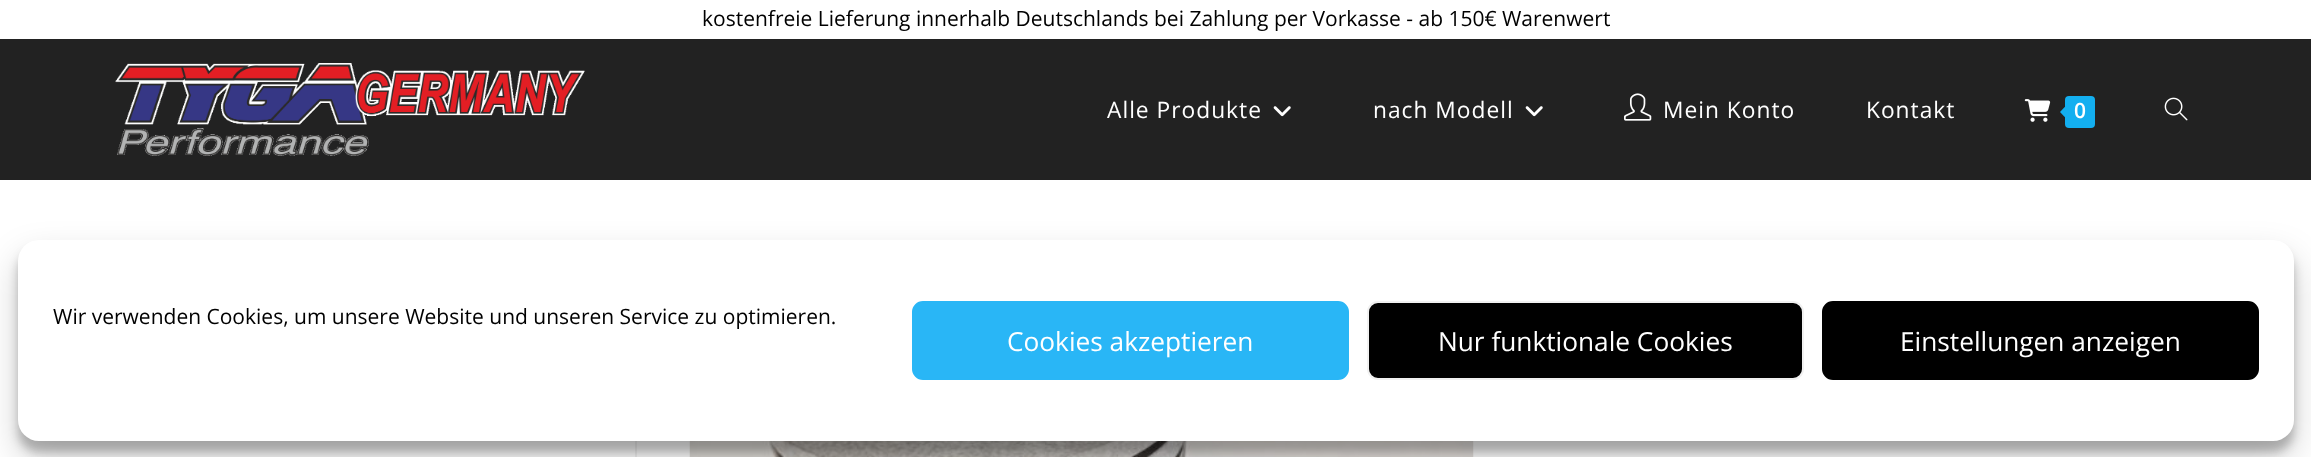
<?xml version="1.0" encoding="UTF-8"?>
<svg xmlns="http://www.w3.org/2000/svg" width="2311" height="457">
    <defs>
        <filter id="blur1" x="-50%" y="-200%" width="200%" height="500%"><feGaussianBlur stdDeviation="5"/></filter>
        <filter id="blur2" x="-50%" y="-200%" width="200%" height="500%"><feGaussianBlur stdDeviation="17.5"/></filter>
    </defs>
    <rect width="100%" height="100%" fill="#FFFFFF"/>
    <text x="702" y="26" font-family="Open Sans" font-size="21" fill="#000000">kostenfreie Lieferung innerhalb Deutschlands bei Zahlung per Vorkasse - ab 150€ Warenwert</text>
    <rect x="0" y="39" width="2311" height="141" fill="#222222"/>
    <image x="115" y="63" width="470" height="93" href="img_01.png"/>
    <text x="1107" y="118" font-family="Open Sans" font-size="22.75" letter-spacing="1" fill="#FFFFFF">Alle Produkte</text>
    <image x="1273" y="106" width="18" height="11" href="img_02.png"/>
    <text x="1373" y="118" font-family="Open Sans" font-size="22.75" letter-spacing="1" fill="#FFFFFF">nach Modell</text>
    <image x="1525" y="106" width="18" height="11" href="img_02.png"/>
    <image x="1624" y="93" width="28" height="28" href="img_03.png"/>
    <text x="1663" y="118" font-family="Open Sans" font-size="22.75" letter-spacing="1" fill="#FFFFFF">Mein Konto</text>
    <text x="1866" y="118" font-family="Open Sans" font-size="22.75" letter-spacing="1" fill="#FFFFFF">Kontakt</text>
    <image x="2024" y="99" width="27" height="23" href="img_04.png"/>
    <rect x="2065" y="96" width="30" height="32" rx="4" fill="#13AFF0"/>
    <path d="M 2068.5 103 V 121 L 2060 112 Z" fill="#13AFF0"/>
    <text x="2074" y="118" font-family="Open Sans" font-size="21" font-weight="600" fill="#FFFFFF">0</text>
    <image x="2164" y="97" width="24" height="24" href="img_05.png"/>
    <rect x="635" y="441" width="2" height="16" fill="#F1F1F1"/>
    <image x="689" y="441" width="785" height="16" href="img_06.png"/>
    <rect x="18" y="250" width="2276" height="202" rx="21" fill="#000000" fill-opacity="0.23" filter="url(#blur1)"/>
    <rect x="18" y="257" width="2276" height="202" rx="21" fill="#000000" fill-opacity="0.19" filter="url(#blur2)"/>
    <rect x="18" y="240" width="2276" height="201" rx="21" fill="#FFFFFF"/>
    <text x="53" y="324" font-family="Open Sans" font-size="21" fill="#000000">Wir verwenden Cookies, um unsere Website und unseren Service zu optimieren.</text>
    <rect x="913" y="302" width="435" height="77" rx="10" fill="#29B6F6" stroke="#29B6F6" stroke-width="2"/>
    <text x="1007" y="351" font-family="Open Sans" font-size="26.25" fill="#FFFFFF">Cookies akzeptieren</text>
    <rect x="1368" y="302" width="435" height="77" rx="10" fill="#000000" stroke="#F1F1F1" stroke-width="2"/>
    <text x="1438" y="351" font-family="Open Sans" font-size="26.25" fill="#FFFFFF">Nur funktionale Cookies</text>
    <rect x="1823" y="302" width="435" height="77" rx="10" fill="#000000" stroke="#000000" stroke-width="2"/>
    <text x="1900" y="351" font-family="Open Sans" font-size="26.25" fill="#FFFFFF">Einstellungen anzeigen</text>
</svg>
